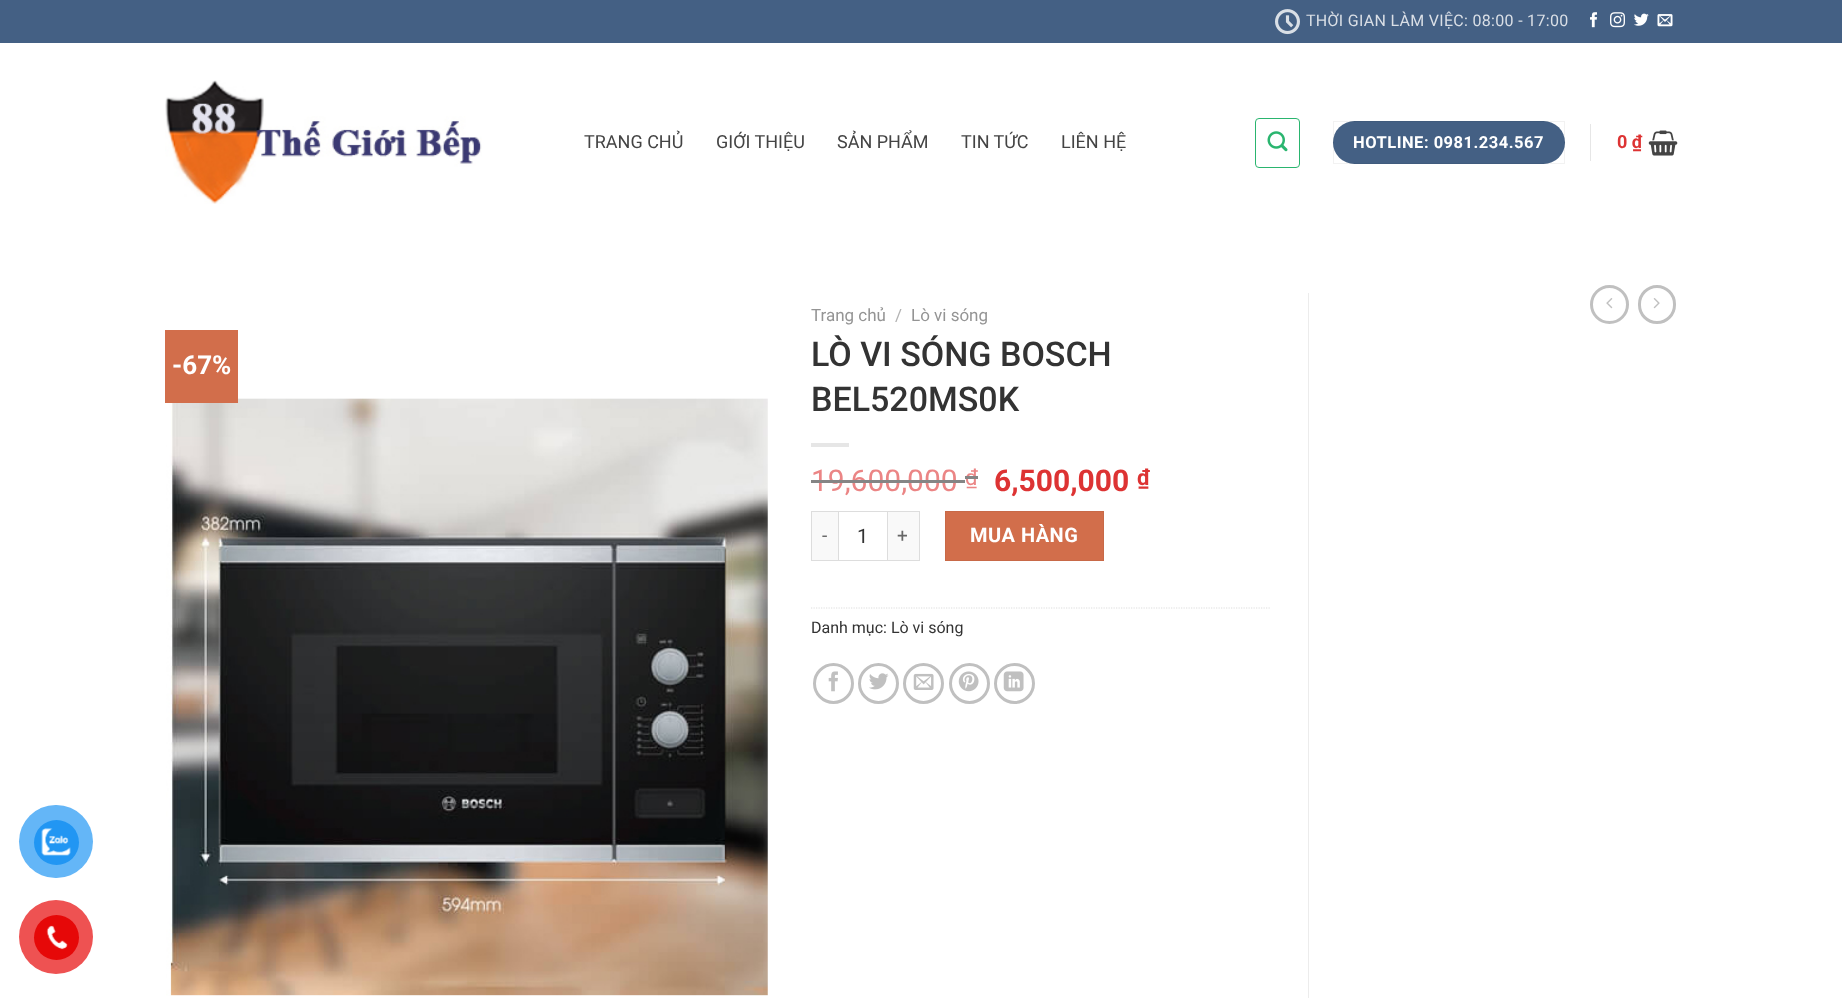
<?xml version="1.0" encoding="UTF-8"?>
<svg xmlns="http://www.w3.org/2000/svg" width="1842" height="998">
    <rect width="100%" height="100%" fill="#FFFFFF"/>
    <rect x="0" y="0" width="1842" height="43" fill="#446084"/>
    <image x="1275" y="9" width="25" height="26" href="img_01.png"/>
    <text x="1306" y="26" font-family="Roboto" font-size="16" letter-spacing="0.3" fill="#DADFE6">THỜI GIAN LÀM VIỆC: 08:00 - 17:00</text>
    <image x="1590" y="12" width="7" height="16" href="img_02.png"/>
    <image x="1610" y="12" width="15" height="16" href="img_03.png"/>
    <image x="1634" y="13" width="15" height="13" href="img_04.png"/>
    <image x="1657" y="14" width="16" height="13" href="img_05.png"/>
    <image x="165" y="80" width="317" height="124" href="img_06.png"/>
    <text x="584" y="148" font-family="Roboto" font-size="18" fill="#444444">TRANG CHỦ</text>
    <text x="716" y="148" font-family="Roboto" font-size="18" fill="#444444">GIỚI THIỆU</text>
    <text x="837" y="148" font-family="Roboto" font-size="18" fill="#444444">SẢN PHẨM</text>
    <text x="961" y="148" font-family="Roboto" font-size="18" fill="#444444">TIN TỨC</text>
    <text x="1061" y="148" font-family="Roboto" font-size="18" fill="#444444">LIÊN HỆ</text>
    <rect x="1255.5" y="118.5" width="44" height="49" rx="3.5" fill="none" stroke="#2AB56F"/>
    <image x="1267" y="131" width="21" height="21" href="img_07.png"/>
    <rect x="1333" y="121" width="232" height="43" rx="21.5" fill="#446084"/>
    <rect x="1333.5" y="121.5" width="231" height="42" fill="none" stroke="#000000" stroke-opacity="0.05"/>
    <text x="1353" y="148" font-family="Roboto" font-size="16.5" font-weight="700" letter-spacing="0.5" fill="#FFFFFF">HOTLINE: 0981.234.567</text>
    <rect x="1590" y="124" width="1" height="37" fill="#E6E6E6"/>
    <text x="1617" y="148" font-family="Roboto" font-size="18" font-weight="700" fill="#DD3333">0 ₫</text>
    <image x="1648" y="130" width="30" height="26" href="img_08.png"/>
    <image x="166" y="398" width="602" height="598" href="img_09.png"/>
    <rect x="165" y="330" width="73" height="73" fill="#D26E4B"/>
    <text x="172" y="374" font-family="Roboto" font-size="26" font-weight="700" fill="#FFFFFF">-67%</text>
    <rect x="1308" y="293" width="1" height="705" fill="#ECECEC"/>
    <text x="811" y="321" font-family="Roboto" font-size="17" fill="#949494">Trang chủ</text>
    <text x="895" y="321" font-family="Roboto" font-size="17" fill="#B2B2B2">/</text>
    <text x="911" y="321" font-family="Roboto" font-size="17" fill="#949494">Lò vi sóng</text>
    <text font-family="Roboto" font-size="34" font-weight="500" fill="#333333">
        <tspan x="811" y="366">LÒ VI SÓNG BOSCH</tspan>
        <tspan x="811" y="411">BEL520MS0K</tspan>
    </text>
    <rect x="811" y="443" width="38" height="4" fill="#E6E6E6"/>
    <text x="811" y="491" font-family="Roboto" font-size="30" fill="#EB8585">19,600,000</text>
    <rect x="811" y="480" width="154" height="3" fill="#858585"/>
    <text x="965" y="485" font-family="Roboto" font-size="22" fill="#EB8585">₫</text>
    <rect x="965" y="476" width="13" height="3" fill="#858585"/>
    <text x="994" y="491" font-family="Roboto" font-size="30" font-weight="700" fill="#DD3333">6,500,000</text>
    <text x="1137" y="485" font-family="Roboto" font-size="22" font-weight="700" fill="#DD3333">₫</text>
    <rect x="812" y="512" width="26" height="48" fill="#F9F9F9"/>
    <rect x="811" y="511" width="27" height="1" fill="#DDDDDD"/>
    <rect x="811" y="560" width="27" height="1" fill="#DDDDDD"/>
    <rect x="811" y="511" width="1" height="50" fill="#DDDDDD"/>
    <text x="822" y="542" font-family="Roboto" font-size="19" letter-spacing="1" fill="#666666">-</text>
    <rect x="838.5" y="511.5" width="49" height="49" fill="none" stroke="#DDDDDD"/>
    <text x="857" y="543" font-family="Roboto" font-size="20" fill="#333333">1</text>
    <rect x="888" y="512" width="31" height="48" fill="#F9F9F9"/>
    <rect x="888" y="511" width="32" height="1" fill="#DDDDDD"/>
    <rect x="919" y="511" width="1" height="50" fill="#DDDDDD"/>
    <rect x="888" y="560" width="32" height="1" fill="#DDDDDD"/>
    <text x="897" y="542" font-family="Roboto" font-size="19" letter-spacing="1" fill="#666666">+</text>
    <rect x="945.5" y="511.5" width="158" height="49" fill="#D26E4B" stroke="#C86947"/>
    <text x="970" y="542" font-family="Roboto" font-size="20" font-weight="700" letter-spacing="0.5" fill="#FFFFFF">MUA HÀNG</text>
    <path d="M 811 608 H 1270" fill="none" stroke="#DDDDDD" stroke-width="1.2" stroke-dasharray="1.25 1.25"/>
    <text x="811" y="633" font-family="Roboto" font-size="16" fill="#333333">Danh mục: Lò vi sóng</text>
    <circle cx="833.5" cy="683.5" r="19" fill="none" stroke="#C0C0C0" stroke-width="3"/>
    <image x="828" y="671" width="10" height="21" href="img_10.png"/>
    <circle cx="878.5" cy="683.5" r="19" fill="none" stroke="#C0C0C0" stroke-width="3"/>
    <image x="869" y="673" width="20" height="17" href="img_11.png"/>
    <circle cx="923.5" cy="683.5" r="19" fill="none" stroke="#C0C0C0" stroke-width="3"/>
    <image x="913" y="673" width="21" height="17" href="img_12.png"/>
    <circle cx="969.5" cy="683.5" r="19" fill="none" stroke="#C0C0C0" stroke-width="3"/>
    <image x="958" y="671" width="21" height="21" href="img_13.png"/>
    <circle cx="1014.5" cy="683.5" r="19" fill="none" stroke="#C0C0C0" stroke-width="3"/>
    <image x="1003" y="671" width="21" height="21" href="img_14.png"/>
    <circle cx="1609.5" cy="304.5" r="18" fill="none" stroke="#C0C0C0" stroke-width="3"/>
    <image x="1606" y="298" width="7" height="11" href="img_15.png"/>
    <rect x="1639.5" y="286.5" width="35" height="36" rx="17.5" fill="none" stroke="#C0C0C0" stroke-width="3"/>
    <image x="1653" y="298" width="7" height="11" href="img_16.png"/>
    <rect x="19" y="805" width="74" height="73" rx="36.5" fill="#64B6F7"/>
    <circle cx="56.5" cy="842.5" r="22.5" fill="#2196F3"/>
    <image x="41" y="828" width="30" height="28" href="img_17.png"/>
    <circle cx="56" cy="937" r="37" fill="#EE5252"/>
    <circle cx="56.5" cy="937.5" r="22.5" fill="#E60808"/>
    <image x="46" y="925" width="22" height="25" href="img_18.png"/>
</svg>
